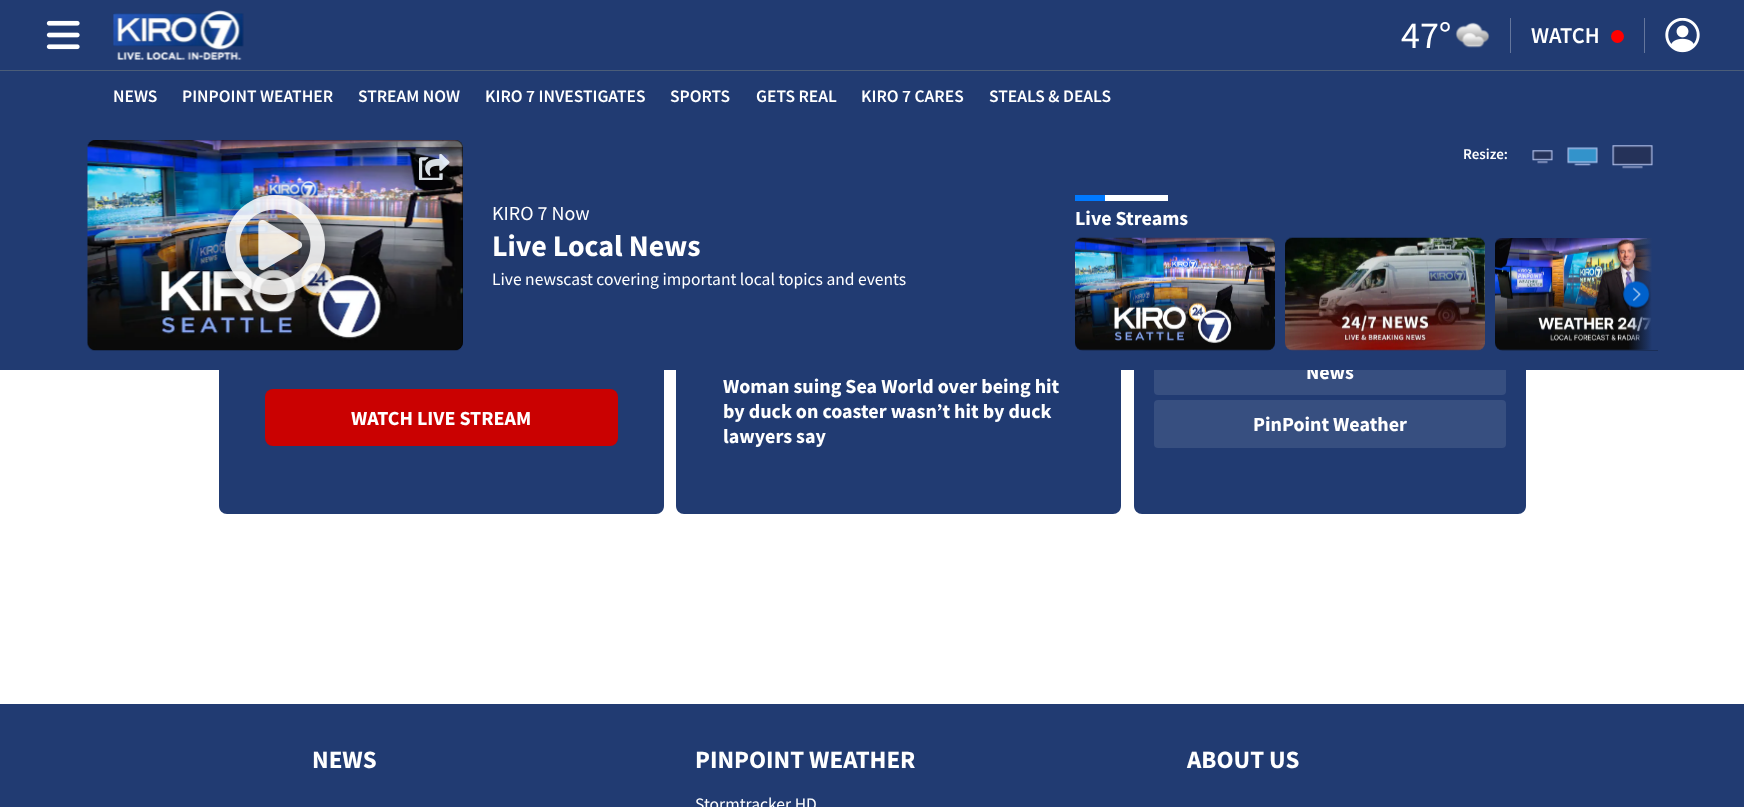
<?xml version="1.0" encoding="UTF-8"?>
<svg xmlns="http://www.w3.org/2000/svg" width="1744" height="807">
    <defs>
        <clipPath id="clip1"><rect x="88" y="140" width="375" height="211"/></clipPath>
        <clipPath id="clip2"><path d="M 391 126 H 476 V 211 H 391 Z M 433.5 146 C 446 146 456 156 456 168.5 C 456 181 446 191 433.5 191 C 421 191 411 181 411 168.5 C 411 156 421 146 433.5 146 Z" clip-rule="evenodd"/></clipPath>
        <filter id="blur1" x="-50%" y="-200%" width="200%" height="500%"><feGaussianBlur stdDeviation="4.5"/></filter>
        <clipPath id="clip3"><path d="M 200 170 H 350 V 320 H 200 Z M 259 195 H 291 C 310 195 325 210 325 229 V 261 C 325 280 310 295 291 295 H 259 C 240 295 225 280 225 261 V 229 C 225 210 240 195 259 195 Z" clip-rule="evenodd"/></clipPath>
        <filter id="blur2" x="-50%" y="-200%" width="200%" height="500%"><feGaussianBlur stdDeviation="6"/></filter>
        <linearGradient id="g1" gradientUnits="userSpaceOnUse" x1="1628" y1="288" x2="1658" y2="288"><stop offset="0" stop-color="#213B72" stop-opacity="0"/><stop offset="0.8" stop-color="#213B72"/></linearGradient>
    </defs>
    <rect width="100%" height="100%" fill="#FFFFFF"/>
    <rect x="0" y="0" width="1744" height="70" fill="#213B72"/>
    <image x="46" y="20" width="34" height="30" href="img_01.png"/>
    <image x="113" y="10" width="131" height="50" href="img_02.png"/>
    <text x="1401" y="48" font-family="Source Sans Pro" font-size="38" fill="#FFFFFF">47°</text>
    <image x="1455" y="22" width="35" height="26" href="img_03.png"/>
    <rect x="1510" y="18" width="1" height="35" fill="#64769C"/>
    <text x="1531" y="43" font-family="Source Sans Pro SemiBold" font-size="22.5" font-weight="600" fill="#FFFFFF">WATCH</text>
    <circle cx="1617.5" cy="36.5" r="6.5" fill="#FF0000"/>
    <rect x="1644" y="18" width="1" height="35" fill="#64769C"/>
    <image x="1665" y="18" width="35" height="35" href="img_04.png"/>
    <rect x="0" y="70" width="1744" height="1" fill="#4B5D78"/>
    <rect x="219" y="205" width="445" height="309" rx="8" fill="#213B72"/>
    <rect x="676" y="205" width="445" height="309" rx="8" fill="#213B72"/>
    <rect x="1134" y="205" width="392" height="309" rx="8" fill="#213B72"/>
    <rect x="1154" y="348" width="352" height="47" rx="4" fill="#374F80"/>
    <text x="1306" y="379" font-family="Source Sans Pro" font-size="20" font-weight="700" fill="#FFFFFF">News</text>
    <rect x="0" y="71" width="1744" height="299" fill="#213B72"/>
    <text x="113" y="102" font-family="Source Sans Pro SemiBold" font-size="17.5" font-weight="600" fill="#FFFFFF">NEWS</text>
    <text x="182" y="102" font-family="Source Sans Pro SemiBold" font-size="17.5" font-weight="600" fill="#FFFFFF">PINPOINT WEATHER</text>
    <text x="358" y="102" font-family="Source Sans Pro SemiBold" font-size="17.5" font-weight="600" fill="#FFFFFF">STREAM NOW</text>
    <text x="485" y="102" font-family="Source Sans Pro SemiBold" font-size="17.5" font-weight="600" fill="#FFFFFF">KIRO 7 INVESTIGATES</text>
    <text x="670" y="102" font-family="Source Sans Pro SemiBold" font-size="17.5" font-weight="600" fill="#FFFFFF">SPORTS</text>
    <text x="756" y="102" font-family="Source Sans Pro SemiBold" font-size="17.5" font-weight="600" fill="#FFFFFF">GETS REAL</text>
    <text x="861" y="102" font-family="Source Sans Pro SemiBold" font-size="17.5" font-weight="600" fill="#FFFFFF">KIRO 7 CARES</text>
    <text x="989" y="102" font-family="Source Sans Pro SemiBold" font-size="17.5" font-weight="600" fill="#FFFFFF">STEALS &amp; DEALS</text>
    <rect x="88" y="140" width="375" height="210" rx="8" fill="#000000"/>
    <image x="87" y="140" width="376" height="211" href="img_06.png"/>
    <g clip-path="url(#clip1)">
        <g clip-path="url(#clip2)">
            <rect x="406" y="141" width="55" height="55" rx="27.5" fill="#000000" fill-opacity="0.1" filter="url(#blur1)"/>
        </g>
    </g>
    <circle cx="433.5" cy="168.5" r="22.5" fill="#000000" fill-opacity="0.1"/>
    <image x="419" y="154" width="31" height="26" href="img_05.png"/>
    <g clip-path="url(#clip3)">
        <rect x="219" y="189" width="112" height="112" rx="40" fill="#000000" fill-opacity="0.21" filter="url(#blur2)"/>
    </g>
    <rect x="225" y="195" width="100" height="100" rx="34" fill="#000000" fill-opacity="0.21"/>
    <image x="225" y="195" width="100" height="100" href="img_07.png"/>
    <text x="1463" y="159" font-family="Source Sans Pro SemiBold" font-size="15" font-weight="600" fill="#FFFFFF">Resize:</text>
    <image x="1532" y="150" width="21" height="14" href="img_08.png"/>
    <image x="1567" y="147" width="31" height="19" href="img_09.png"/>
    <image x="1612" y="145" width="41" height="24" href="img_10.png"/>
    <text x="492" y="220" font-family="Source Sans Pro" font-size="20" fill="#FFFFFF">KIRO 7 Now</text>
    <text x="492" y="256" font-family="Source Sans Pro" font-size="30" font-weight="700" fill="#FFFFFF">Live Local News</text>
    <text x="492" y="285" font-family="Source Sans Pro" font-size="17.5" fill="#FFFFFF">Live newscast covering important local topics and events</text>
    <rect x="1105" y="195" width="63" height="6" fill="#FFFFFF"/>
    <rect x="1075" y="195" width="30" height="6" fill="#0079FF"/>
    <text x="1075" y="225" font-family="Source Sans Pro" font-size="20" font-weight="700" fill="#FFFFFF">Live Streams</text>
    <image x="1075" y="237" width="200" height="114" href="img_11.png"/>
    <image x="1285" y="237" width="200" height="114" href="img_12.png"/>
    <image x="1495" y="238" width="163" height="113" href="img_13.png"/>
    <rect x="1629" y="238" width="29" height="112" fill="url(#g1)"/>
    <image x="1623" y="281" width="28" height="29" href="img_14.png"/>
    <rect x="265" y="389" width="353" height="57" rx="8" fill="#CA0101"/>
    <text x="351" y="425" font-family="Source Sans Pro" font-size="20" font-weight="700" fill="#FFFFFF">WATCH LIVE STREAM</text>
    <text font-family="Source Sans Pro" font-size="20" font-weight="700" fill="#FFFFFF">
        <tspan x="723" y="393">Woman suing Sea World over being hit</tspan>
        <tspan x="723" y="418">by duck on coaster wasn’t hit by duck</tspan>
        <tspan x="723" y="443">lawyers say</tspan>
    </text>
    <rect x="1154" y="400" width="352" height="48" rx="4" fill="#374F80"/>
    <text x="1253" y="431" font-family="Source Sans Pro" font-size="20" font-weight="700" fill="#FFFFFF">PinPoint Weather</text>
    <rect x="0" y="704" width="1744" height="103" fill="#213B72"/>
    <text x="312" y="768" font-family="Source Sans Pro" font-size="25" font-weight="700" fill="#FFFFFF">NEWS</text>
    <text x="695" y="768" font-family="Source Sans Pro" font-size="25" font-weight="700" fill="#FFFFFF">PINPOINT WEATHER</text>
    <text x="695" y="810" font-family="Source Sans Pro" font-size="17.5" fill="#FFFFFF">Stormtracker HD</text>
    <text x="1187" y="768" font-family="Source Sans Pro" font-size="25" font-weight="700" fill="#FFFFFF">ABOUT US</text>
</svg>
